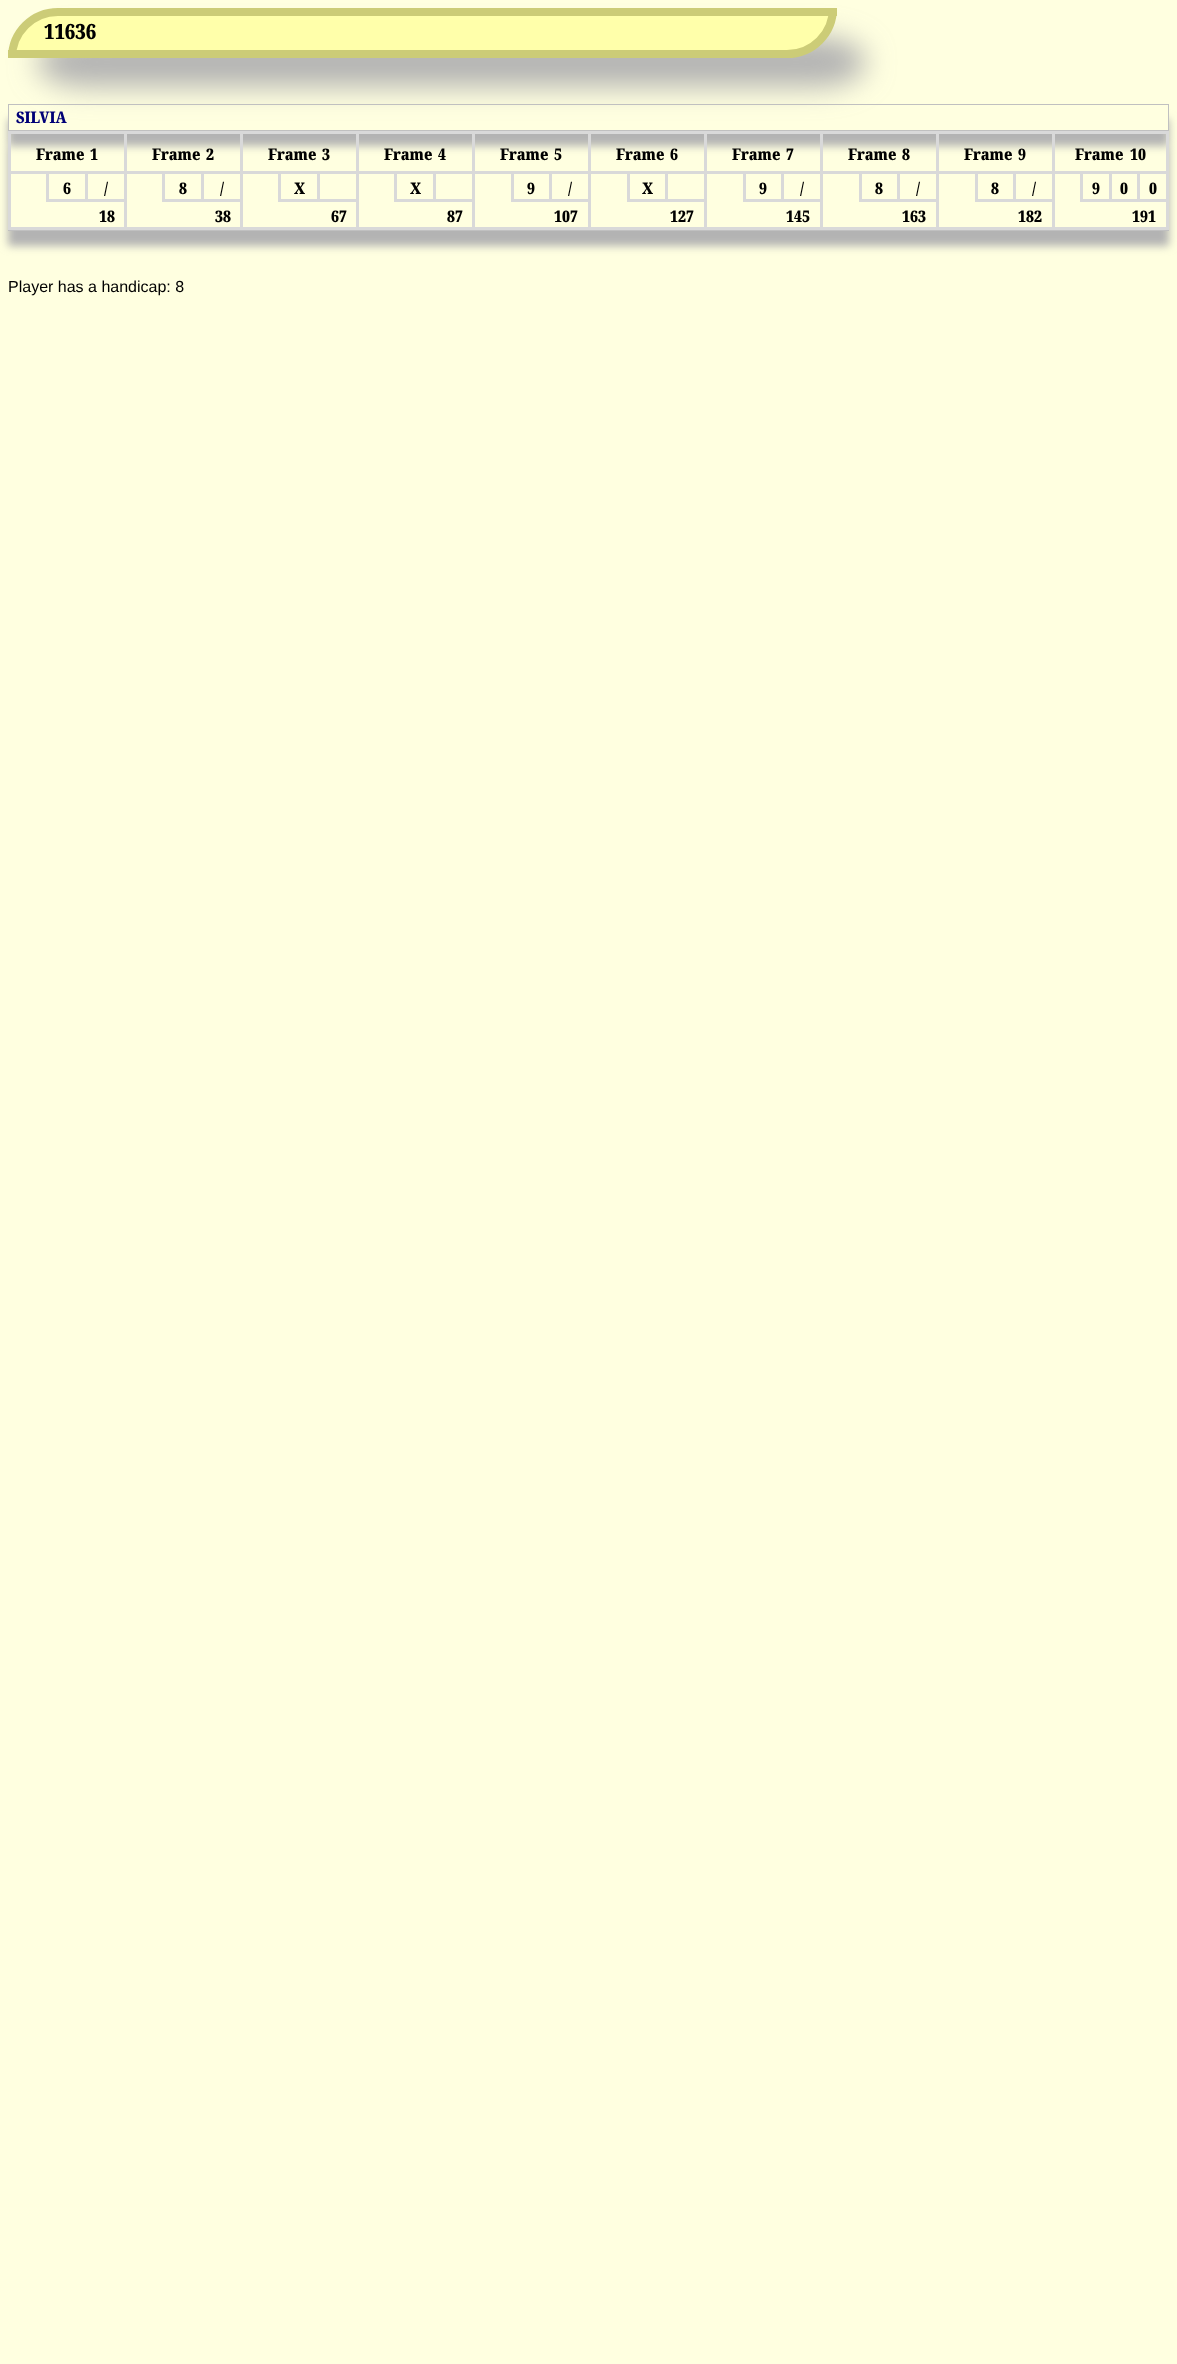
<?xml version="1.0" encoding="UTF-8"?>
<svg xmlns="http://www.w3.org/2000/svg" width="1177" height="2364">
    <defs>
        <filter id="blur1" x="-50%" y="-200%" width="200%" height="500%"><feGaussianBlur stdDeviation="14.5"/></filter>
        <clipPath id="clip1"><path d="M 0 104 H 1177 V 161 H 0 Z M 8 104 H 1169 V 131 H 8 Z" clip-rule="evenodd"/></clipPath>
        <filter id="blur2" x="-50%" y="-200%" width="200%" height="500%"><feGaussianBlur stdDeviation="4.5"/></filter>
        <clipPath id="clip2"><path d="M 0 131 H 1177 V 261 H 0 Z M 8 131 H 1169 V 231 H 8 Z" clip-rule="evenodd"/></clipPath>
    </defs>
    <rect width="100%" height="100%" fill="#FFFFE0"/>
    <rect x="37" y="37" width="829" height="50" rx="50" fill="#B3B3B3" filter="url(#blur1)"/>
    <path d="M 58 12 H 833 V 8 C 833 33.5 812.5 54 787 54 H 12 V 58 C 12 32.5 32.5 12 58 12 Z" fill="#FFFFAA" stroke="#CCCC77" stroke-width="8"/>
    <text x="44" y="39" font-family="Noto Serif" font-size="21" font-weight="900" fill="#000000">11636</text>
    <g clip-path="url(#clip1)">
        <rect x="8" y="119" width="1161" height="27" fill="#B3B3B3" filter="url(#blur2)"/>
    </g>
    <rect x="8" y="104" width="1161" height="1" fill="#C0C0C0"/>
    <rect x="1168" y="104" width="1" height="27" fill="#C0C0C0"/>
    <rect x="8" y="130" width="1161" height="1" fill="#C0C0C0"/>
    <rect x="8" y="104" width="1" height="27" fill="#C0C0C0"/>
    <text x="16" y="123" font-family="Noto Serif" font-size="16" font-weight="900" fill="#000077">SILVIA</text>
    <g clip-path="url(#clip2)">
        <rect x="8" y="146" width="1161" height="100" fill="#B3B3B3" filter="url(#blur2)"/>
    </g>
    <rect x="8" y="230" width="1161" height="1" fill="#C0C0C0"/>
    <rect x="8" y="131" width="1161" height="3" fill="#D9D9D9"/>
    <rect x="1166" y="171" width="3" height="59" fill="#D9D9D9"/>
    <rect x="1166" y="131" width="3" height="43" fill="#D9D9D9"/>
    <rect x="1137" y="199" width="32" height="3" fill="#D9D9D9"/>
    <rect x="1137" y="171" width="3" height="31" fill="#D9D9D9"/>
    <rect x="1109" y="199" width="31" height="3" fill="#D9D9D9"/>
    <rect x="1109" y="171" width="3" height="31" fill="#D9D9D9"/>
    <rect x="1080" y="199" width="32" height="3" fill="#D9D9D9"/>
    <rect x="1080" y="171" width="3" height="31" fill="#D9D9D9"/>
    <rect x="1052" y="227" width="117" height="3" fill="#D9D9D9"/>
    <rect x="1052" y="171" width="3" height="59" fill="#D9D9D9"/>
    <rect x="1052" y="171" width="117" height="3" fill="#D9D9D9"/>
    <rect x="1052" y="131" width="3" height="43" fill="#D9D9D9"/>
    <rect x="1013" y="199" width="42" height="3" fill="#D9D9D9"/>
    <rect x="1013" y="171" width="3" height="31" fill="#D9D9D9"/>
    <rect x="975" y="199" width="41" height="3" fill="#D9D9D9"/>
    <rect x="975" y="171" width="3" height="31" fill="#D9D9D9"/>
    <rect x="936" y="227" width="119" height="3" fill="#D9D9D9"/>
    <rect x="936" y="171" width="3" height="59" fill="#D9D9D9"/>
    <rect x="936" y="171" width="119" height="3" fill="#D9D9D9"/>
    <rect x="936" y="131" width="3" height="43" fill="#D9D9D9"/>
    <rect x="897" y="199" width="42" height="3" fill="#D9D9D9"/>
    <rect x="897" y="171" width="3" height="31" fill="#D9D9D9"/>
    <rect x="859" y="199" width="41" height="3" fill="#D9D9D9"/>
    <rect x="859" y="171" width="3" height="31" fill="#D9D9D9"/>
    <rect x="820" y="227" width="119" height="3" fill="#D9D9D9"/>
    <rect x="820" y="171" width="3" height="59" fill="#D9D9D9"/>
    <rect x="820" y="171" width="119" height="3" fill="#D9D9D9"/>
    <rect x="820" y="131" width="3" height="43" fill="#D9D9D9"/>
    <rect x="781" y="199" width="42" height="3" fill="#D9D9D9"/>
    <rect x="781" y="171" width="3" height="31" fill="#D9D9D9"/>
    <rect x="743" y="199" width="41" height="3" fill="#D9D9D9"/>
    <rect x="743" y="171" width="3" height="31" fill="#D9D9D9"/>
    <rect x="704" y="227" width="119" height="3" fill="#D9D9D9"/>
    <rect x="704" y="171" width="3" height="59" fill="#D9D9D9"/>
    <rect x="704" y="171" width="119" height="3" fill="#D9D9D9"/>
    <rect x="704" y="131" width="3" height="43" fill="#D9D9D9"/>
    <rect x="665" y="199" width="42" height="3" fill="#D9D9D9"/>
    <rect x="665" y="171" width="3" height="31" fill="#D9D9D9"/>
    <rect x="627" y="199" width="41" height="3" fill="#D9D9D9"/>
    <rect x="627" y="171" width="3" height="31" fill="#D9D9D9"/>
    <rect x="588" y="227" width="119" height="3" fill="#D9D9D9"/>
    <rect x="588" y="171" width="3" height="59" fill="#D9D9D9"/>
    <rect x="588" y="171" width="119" height="3" fill="#D9D9D9"/>
    <rect x="588" y="131" width="3" height="43" fill="#D9D9D9"/>
    <rect x="549" y="199" width="42" height="3" fill="#D9D9D9"/>
    <rect x="549" y="171" width="3" height="31" fill="#D9D9D9"/>
    <rect x="511" y="199" width="41" height="3" fill="#D9D9D9"/>
    <rect x="511" y="171" width="3" height="31" fill="#D9D9D9"/>
    <rect x="472" y="227" width="119" height="3" fill="#D9D9D9"/>
    <rect x="472" y="171" width="3" height="59" fill="#D9D9D9"/>
    <rect x="472" y="171" width="119" height="3" fill="#D9D9D9"/>
    <rect x="472" y="131" width="3" height="43" fill="#D9D9D9"/>
    <rect x="433" y="199" width="42" height="3" fill="#D9D9D9"/>
    <rect x="433" y="171" width="3" height="31" fill="#D9D9D9"/>
    <rect x="394" y="199" width="42" height="3" fill="#D9D9D9"/>
    <rect x="394" y="171" width="3" height="31" fill="#D9D9D9"/>
    <rect x="356" y="227" width="119" height="3" fill="#D9D9D9"/>
    <rect x="356" y="171" width="3" height="59" fill="#D9D9D9"/>
    <rect x="356" y="171" width="119" height="3" fill="#D9D9D9"/>
    <rect x="356" y="131" width="3" height="43" fill="#D9D9D9"/>
    <rect x="317" y="199" width="42" height="3" fill="#D9D9D9"/>
    <rect x="317" y="171" width="3" height="31" fill="#D9D9D9"/>
    <rect x="278" y="199" width="42" height="3" fill="#D9D9D9"/>
    <rect x="278" y="171" width="3" height="31" fill="#D9D9D9"/>
    <rect x="240" y="227" width="119" height="3" fill="#D9D9D9"/>
    <rect x="240" y="171" width="3" height="59" fill="#D9D9D9"/>
    <rect x="240" y="171" width="119" height="3" fill="#D9D9D9"/>
    <rect x="240" y="131" width="3" height="43" fill="#D9D9D9"/>
    <rect x="201" y="199" width="42" height="3" fill="#D9D9D9"/>
    <rect x="201" y="171" width="3" height="31" fill="#D9D9D9"/>
    <rect x="162" y="199" width="42" height="3" fill="#D9D9D9"/>
    <rect x="162" y="171" width="3" height="31" fill="#D9D9D9"/>
    <rect x="124" y="227" width="119" height="3" fill="#D9D9D9"/>
    <rect x="124" y="171" width="3" height="59" fill="#D9D9D9"/>
    <rect x="124" y="171" width="119" height="3" fill="#D9D9D9"/>
    <rect x="124" y="131" width="3" height="43" fill="#D9D9D9"/>
    <rect x="85" y="199" width="42" height="3" fill="#D9D9D9"/>
    <rect x="85" y="171" width="3" height="31" fill="#D9D9D9"/>
    <rect x="46" y="199" width="42" height="3" fill="#D9D9D9"/>
    <rect x="46" y="171" width="3" height="31" fill="#D9D9D9"/>
    <rect x="8" y="227" width="119" height="3" fill="#D9D9D9"/>
    <rect x="8" y="171" width="3" height="59" fill="#D9D9D9"/>
    <rect x="8" y="171" width="119" height="3" fill="#D9D9D9"/>
    <rect x="8" y="131" width="3" height="43" fill="#D9D9D9"/>
    <text x="36" y="160" word-spacing="2" font-family="Noto Serif" font-size="16" font-weight="900" fill="#000000">Frame 1</text>
    <text x="152" y="160" word-spacing="2" font-family="Noto Serif" font-size="16" font-weight="900" fill="#000000">Frame 2</text>
    <text x="268" y="160" word-spacing="2" font-family="Noto Serif" font-size="16" font-weight="900" fill="#000000">Frame 3</text>
    <text x="384" y="160" word-spacing="2" font-family="Noto Serif" font-size="16" font-weight="900" fill="#000000">Frame 4</text>
    <text x="500" y="160" word-spacing="2" font-family="Noto Serif" font-size="16" font-weight="900" fill="#000000">Frame 5</text>
    <text x="616" y="160" word-spacing="2" font-family="Noto Serif" font-size="16" font-weight="900" fill="#000000">Frame 6</text>
    <text x="732" y="160" word-spacing="2" font-family="Noto Serif" font-size="16" font-weight="900" fill="#000000">Frame 7</text>
    <text x="848" y="160" word-spacing="2" font-family="Noto Serif" font-size="16" font-weight="900" fill="#000000">Frame 8</text>
    <text x="964" y="160" word-spacing="2" font-family="Noto Serif" font-size="16" font-weight="900" fill="#000000">Frame 9</text>
    <text x="1075" y="160" word-spacing="3" font-family="Noto Serif" font-size="16" font-weight="900" fill="#000000">Frame 10</text>
    <text x="63" y="194" font-family="Noto Serif" font-size="16" font-weight="900" fill="#000000">6</text>
    <text x="104" y="194" font-family="Noto Serif" font-size="16" font-weight="900" fill="#000000">/</text>
    <text x="179" y="194" font-family="Noto Serif" font-size="16" font-weight="900" fill="#000000">8</text>
    <text x="220" y="194" font-family="Noto Serif" font-size="16" font-weight="900" fill="#000000">/</text>
    <text x="294" y="194" font-family="Noto Serif" font-size="16" font-weight="900" fill="#000000">X</text>
    <text x="410" y="194" font-family="Noto Serif" font-size="16" font-weight="900" fill="#000000">X</text>
    <text x="527" y="194" font-family="Noto Serif" font-size="16" font-weight="900" fill="#000000">9</text>
    <text x="568" y="194" font-family="Noto Serif" font-size="16" font-weight="900" fill="#000000">/</text>
    <text x="642" y="194" font-family="Noto Serif" font-size="16" font-weight="900" fill="#000000">X</text>
    <text x="759" y="194" font-family="Noto Serif" font-size="16" font-weight="900" fill="#000000">9</text>
    <text x="800" y="194" font-family="Noto Serif" font-size="16" font-weight="900" fill="#000000">/</text>
    <text x="875" y="194" font-family="Noto Serif" font-size="16" font-weight="900" fill="#000000">8</text>
    <text x="916" y="194" font-family="Noto Serif" font-size="16" font-weight="900" fill="#000000">/</text>
    <text x="991" y="194" font-family="Noto Serif" font-size="16" font-weight="900" fill="#000000">8</text>
    <text x="1032" y="194" font-family="Noto Serif" font-size="16" font-weight="900" fill="#000000">/</text>
    <text x="1092" y="194" font-family="Noto Serif" font-size="16" font-weight="900" fill="#000000">9</text>
    <text x="1120" y="194" font-family="Noto Serif" font-size="16" font-weight="900" fill="#000000">0</text>
    <text x="1149" y="194" font-family="Noto Serif" font-size="16" font-weight="900" fill="#000000">0</text>
    <text x="99" y="222" font-family="Noto Serif" font-size="16" font-weight="900" fill="#000000">18</text>
    <text x="215" y="222" font-family="Noto Serif" font-size="16" font-weight="900" fill="#000000">38</text>
    <text x="331" y="222" font-family="Noto Serif" font-size="16" font-weight="900" fill="#000000">67</text>
    <text x="447" y="222" font-family="Noto Serif" font-size="16" font-weight="900" fill="#000000">87</text>
    <text x="554" y="222" font-family="Noto Serif" font-size="16" font-weight="900" fill="#000000">107</text>
    <text x="670" y="222" font-family="Noto Serif" font-size="16" font-weight="900" fill="#000000">127</text>
    <text x="786" y="222" font-family="Noto Serif" font-size="16" font-weight="900" fill="#000000">145</text>
    <text x="902" y="222" font-family="Noto Serif" font-size="16" font-weight="900" fill="#000000">163</text>
    <text x="1018" y="222" font-family="Noto Serif" font-size="16" font-weight="900" fill="#000000">182</text>
    <text x="1132" y="222" font-family="Noto Serif" font-size="16" font-weight="900" fill="#000000">191</text>
    <text x="8" y="292" font-family="Liberation Sans" font-size="16" fill="#000000">Player has a handicap: 8</text>
</svg>
